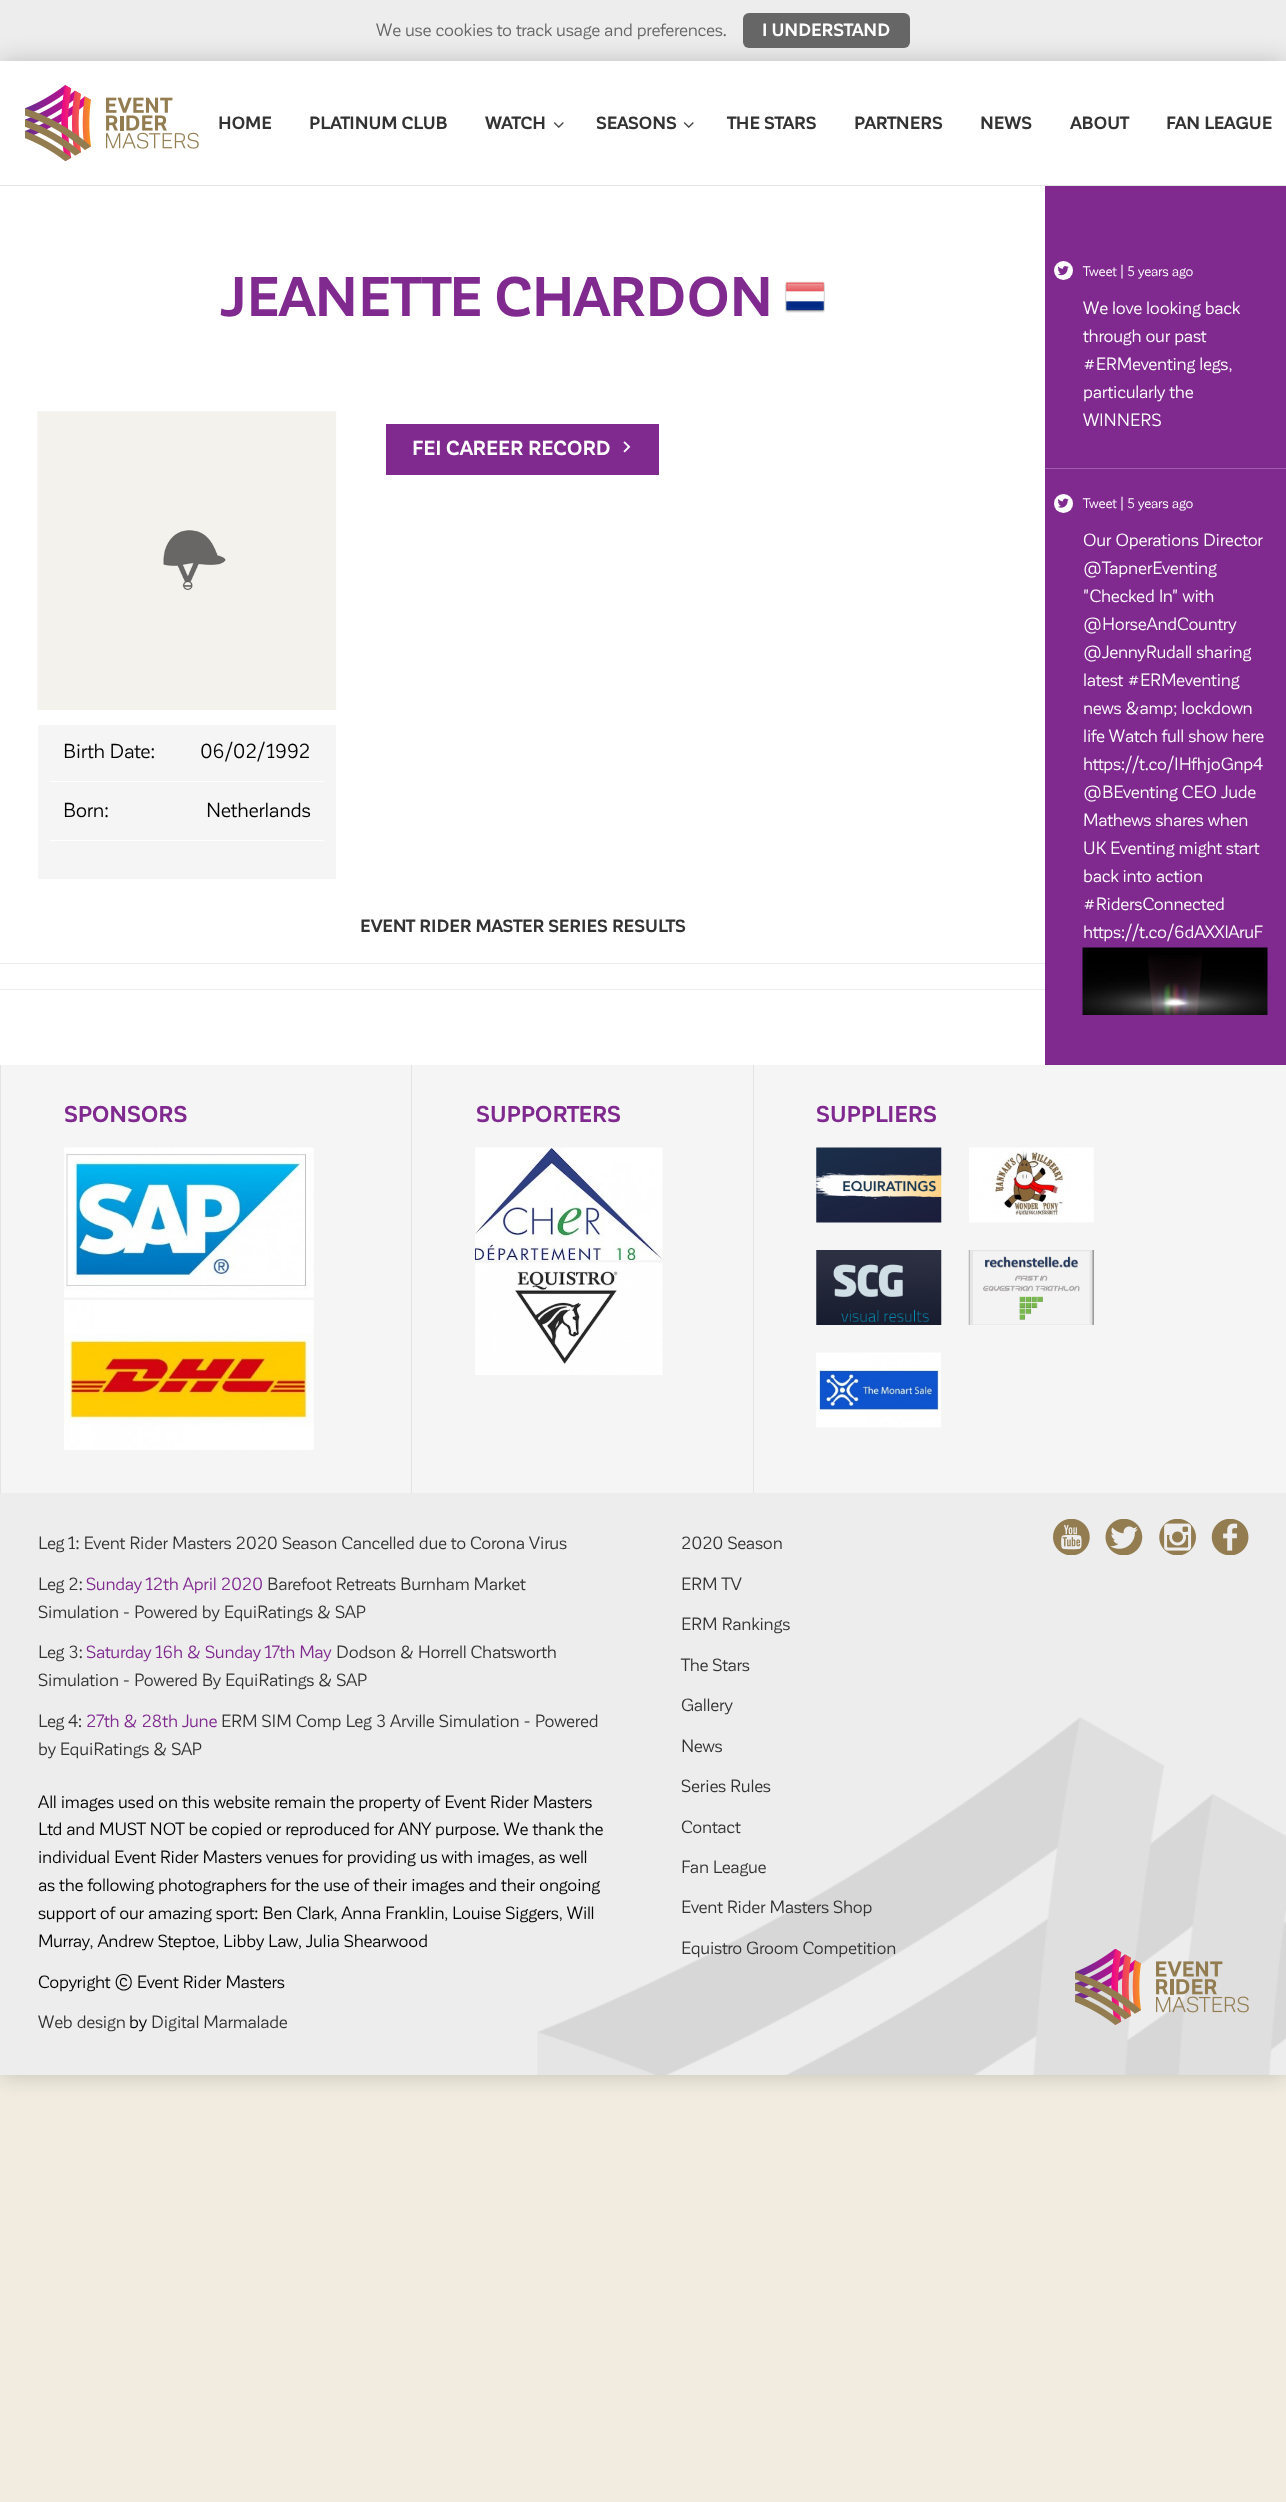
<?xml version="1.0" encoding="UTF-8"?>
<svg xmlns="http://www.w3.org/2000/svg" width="1286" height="2502">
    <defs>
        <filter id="blur1" x="-50%" y="-200%" width="200%" height="500%"><feGaussianBlur stdDeviation="12.5"/></filter>
    </defs>
    <rect width="100%" height="100%" fill="#F1ECDF"/>
    <rect x="0" y="0" width="1286" height="61" fill="#EDEDED"/>
    <rect x="0" y="61" width="1286" height="2014" fill="#000000" fill-opacity="0.2" filter="url(#blur1)"/>
    <text x="376" y="36" font-family="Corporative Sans" font-size="17.5" fill="#666666">We use cookies to track usage and preferences.</text>
    <rect x="743" y="13" width="167" height="35" rx="6" fill="#666666"/>
    <text x="762" y="36" font-family="Corporative Sans" font-size="17.5" font-weight="700" fill="#FFFFFF">I UNDERSTAND</text>
    <rect x="0" y="61" width="1286" height="1004" fill="#FFFFFF"/>
    <rect x="0" y="185" width="1286" height="1" fill="#E5E5E5"/>
    <image x="25" y="85" width="174" height="76" href="img_01.png"/>
    <text x="218" y="129" font-family="Corporative Sans" font-size="17.5" font-weight="700" fill="#333333">HOME</text>
    <text x="309" y="129" font-family="Corporative Sans" font-size="17.5" font-weight="700" fill="#333333">PLATINUM CLUB</text>
    <image x="553" y="122" width="11" height="6" href="img_02.png"/>
    <text x="485" y="129" font-family="Corporative Sans" font-size="17.5" font-weight="700" fill="#333333">WATCH</text>
    <image x="683" y="122" width="11" height="6" href="img_02.png"/>
    <text x="596" y="129" font-family="Corporative Sans" font-size="17.5" font-weight="700" fill="#333333">SEASONS</text>
    <text x="727" y="129" font-family="Corporative Sans" font-size="17.5" font-weight="700" fill="#333333">THE STARS</text>
    <text x="854" y="129" font-family="Corporative Sans" font-size="17.5" font-weight="700" fill="#333333">PARTNERS</text>
    <text x="980" y="129" font-family="Corporative Sans" font-size="17.5" font-weight="700" fill="#333333">NEWS</text>
    <text x="1070" y="129" font-family="Corporative Sans" font-size="17.5" font-weight="700" fill="#333333">ABOUT</text>
    <text x="1166" y="129" font-family="Corporative Sans" font-size="17.5" font-weight="700" fill="#333333">FAN LEAGUE</text>
    <text x="220" y="316" font-family="Corporative Sans" font-size="55" font-weight="700" fill="#802A90">JEANETTE CHARDON</text>
    <image x="785" y="281" width="40" height="32" href="img_03.png"/>
    <rect x="386" y="424" width="273" height="51" fill="#802A90"/>
    <text x="412" y="455" font-family="Corporative Sans" font-size="20" font-weight="700" fill="#FFFFFF">FEI CAREER RECORD</text>
    <image x="623" y="441" width="8" height="12" href="img_04.png"/>
    <image x="37" y="411" width="300" height="299" href="img_05.png"/>
    <rect x="38" y="725" width="298" height="154" fill="#F5F5F5"/>
    <text x="63" y="758" font-family="Corporative Sans" font-size="20" fill="#000000">Birth Date:</text>
    <text x="200" y="758" font-family="Corporative Sans" font-size="20" fill="#000000">06/02/1992</text>
    <rect x="50" y="781" width="274" height="1" fill="#FFFFFF"/>
    <text x="63" y="817" font-family="Corporative Sans" font-size="20" fill="#000000">Born:</text>
    <text x="206" y="817" font-family="Corporative Sans" font-size="20" fill="#000000">Netherlands</text>
    <rect x="50" y="840" width="274" height="1" fill="#FFFFFF"/>
    <text x="360" y="932" font-family="Corporative Sans" font-size="17.5" font-weight="700" fill="#333333">EVENT RIDER MASTER SERIES RESULTS</text>
    <rect x="0" y="963" width="1045" height="1" fill="#EDEDED"/>
    <rect x="0" y="989" width="1045" height="1" fill="#EDEDED"/>
    <rect x="1045" y="186" width="241" height="879" fill="#802A90"/>
    <rect x="1045" y="468" width="241" height="1" fill="#A05FAC"/>
    <circle cx="1063.5" cy="270.5" r="9.5" fill="#FFFFFF"/>
    <image x="1058" y="266" width="11" height="10" href="img_06.png"/>
    <text x="1083" y="276" font-family="Corporative Sans" font-size="13.75" fill="#FFFFFF">Tweet | 5 years ago</text>
    <text font-family="Corporative Sans" font-size="17.5" fill="#FFFFFF">
        <tspan x="1083" y="314">We love looking back</tspan>
        <tspan x="1083" y="342">through our past</tspan>
        <tspan x="1083" y="370">#ERMeventing legs,</tspan>
        <tspan x="1083" y="398">particularly the</tspan>
        <tspan x="1083" y="426">WINNERS</tspan>
    </text>
    <circle cx="1063.5" cy="503.5" r="9.5" fill="#FFFFFF"/>
    <image x="1058" y="498" width="11" height="10" href="img_07.png"/>
    <text x="1083" y="508" font-family="Corporative Sans" font-size="13.75" fill="#FFFFFF">Tweet | 5 years ago</text>
    <text font-family="Corporative Sans" font-size="17.5" fill="#FFFFFF">
        <tspan x="1083" y="546">Our Operations Director</tspan>
        <tspan x="1083" y="574">@TapnerEventing</tspan>
        <tspan x="1083" y="602">"Checked In" with</tspan>
        <tspan x="1083" y="630">@HorseAndCountry</tspan>
        <tspan x="1083" y="658">@JennyRudall sharing</tspan>
        <tspan x="1083" y="686">latest #ERMeventing</tspan>
        <tspan x="1083" y="714">news &amp;amp; lockdown</tspan>
        <tspan x="1083" y="742">life Watch full show here</tspan>
        <tspan x="1083" y="770">https://t.co/IHfhjoGnp4</tspan>
        <tspan x="1083" y="798">@BEventing CEO Jude</tspan>
        <tspan x="1083" y="826">Mathews shares when</tspan>
        <tspan x="1083" y="854">UK Eventing might start</tspan>
        <tspan x="1083" y="882">back into action</tspan>
        <tspan x="1083" y="910">#RidersConnected</tspan>
        <tspan x="1083" y="938">https://t.co/6dAXXIAruF</tspan>
    </text>
    <image x="1082" y="947" width="186" height="68" href="img_08.png"/>
    <rect x="0" y="1493" width="1286" height="582" fill="#EDEDED"/>
    <image x="537" y="1717" width="749" height="358" href="img_09.png"/>
    <rect x="1" y="1065" width="1285" height="428" fill="#F5F5F5"/>
    <rect x="0" y="1065" width="1" height="428" fill="#E3E3E3"/>
    <text x="64" y="1122" font-family="Corporative Sans" font-size="22.5" font-weight="700" fill="#802A90">SPONSORS</text>
    <image x="64" y="1147" width="250" height="151" href="img_10.png"/>
    <image x="64" y="1300" width="250" height="150" href="img_11.png"/>
    <rect x="411" y="1065" width="1" height="428" fill="#E3E3E3"/>
    <text x="476" y="1122" font-family="Corporative Sans" font-size="22.5" font-weight="700" fill="#802A90">SUPPORTERS</text>
    <image x="475" y="1147" width="188" height="113" href="img_12.png"/>
    <image x="475" y="1262" width="188" height="113" href="img_13.png"/>
    <rect x="753" y="1065" width="1" height="428" fill="#E3E3E3"/>
    <text x="816" y="1122" font-family="Corporative Sans" font-size="22.5" font-weight="700" fill="#802A90">SUPPLIERS</text>
    <image x="816" y="1147" width="126" height="76" href="img_14.png"/>
    <image x="969" y="1147" width="125" height="76" href="img_15.png"/>
    <image x="816" y="1250" width="126" height="75" href="img_16.png"/>
    <image x="968" y="1250" width="126" height="75" href="img_17.png"/>
    <image x="816" y="1352" width="125" height="76" href="img_18.png"/>
    <text x="38" y="1549" font-family="Corporative Sans" font-size="17.5" fill="#333333">Leg 1: Event Rider Masters 2020 Season Cancelled due to Corona Virus</text>
    <text x="38" y="1590" font-family="Corporative Sans" font-size="17.5" fill="#333333">Leg 2:</text>
    <text x="86" y="1590" font-family="Corporative Sans" font-size="17.5" fill="#802A90">Sunday 12th April 2020</text>
    <text x="267" y="1590" font-family="Corporative Sans" font-size="17.5" fill="#333333">Barefoot Retreats Burnham Market</text>
    <text x="38" y="1618" font-family="Corporative Sans" font-size="17.5" fill="#333333">Simulation - Powered by EquiRatings &amp; SAP</text>
    <text x="38" y="1658" font-family="Corporative Sans" font-size="17.5" fill="#333333">Leg 3:</text>
    <text x="86" y="1658" font-family="Corporative Sans" font-size="17.5" fill="#802A90">Saturday 16h &amp; Sunday 17th May</text>
    <text x="336" y="1658" font-family="Corporative Sans" font-size="17.5" fill="#333333">Dodson &amp; Horrell Chatsworth</text>
    <text x="38" y="1686" font-family="Corporative Sans" font-size="17.5" fill="#333333">Simulation - Powered By EquiRatings &amp; SAP</text>
    <text x="38" y="1727" font-family="Corporative Sans" font-size="17.5" fill="#333333">Leg 4:</text>
    <text x="86" y="1727" font-family="Corporative Sans" font-size="17.5" fill="#802A90">27th &amp; 28th June</text>
    <text x="221" y="1727" font-family="Corporative Sans" font-size="17.5" fill="#333333">ERM SIM Comp Leg 3 Arville Simulation - Powered</text>
    <text x="38" y="1755" font-family="Corporative Sans" font-size="17.5" fill="#333333">by EquiRatings &amp; SAP</text>
    <text font-family="Corporative Sans" font-size="17.5" fill="#000000">
        <tspan x="38" y="1808">All images used on this website remain the property of Event Rider Masters</tspan>
        <tspan x="38" y="1835">Ltd and MUST NOT be copied or reproduced for ANY purpose. We thank the</tspan>
        <tspan x="38" y="1863">individual Event Rider Masters venues for providing us with images, as well</tspan>
        <tspan x="38" y="1891">as the following photographers for the use of their images and their ongoing</tspan>
        <tspan x="38" y="1919">support of our amazing sport: Ben Clark, Anna Franklin, Louise Siggers, Will</tspan>
        <tspan x="38" y="1947">Murray, Andrew Steptoe, Libby Law, Julia Shearwood</tspan>
    </text>
    <text x="38" y="1988" font-family="Corporative Sans" font-size="17.5" fill="#000000">Copyright © Event Rider Masters</text>
    <text x="38" y="2028" font-family="Corporative Sans" font-size="17.5" fill="#333333">Web design</text>
    <text x="129" y="2028" font-family="Corporative Sans" font-size="17.5" fill="#000000">by</text>
    <text x="151" y="2028" font-family="Corporative Sans" font-size="17.5" fill="#333333">Digital Marmalade</text>
    <text x="681" y="1549" font-family="Corporative Sans" font-size="17.5" fill="#333333">2020 Season</text>
    <text x="681" y="1590" font-family="Corporative Sans" font-size="17.5" fill="#333333">ERM TV</text>
    <text x="681" y="1630" font-family="Corporative Sans" font-size="17.5" fill="#333333">ERM Rankings</text>
    <text x="681" y="1671" font-family="Corporative Sans" font-size="17.5" fill="#333333">The Stars</text>
    <text x="681" y="1711" font-family="Corporative Sans" font-size="17.5" fill="#333333">Gallery</text>
    <text x="681" y="1752" font-family="Corporative Sans" font-size="17.5" fill="#333333">News</text>
    <text x="681" y="1792" font-family="Corporative Sans" font-size="17.5" fill="#333333">Series Rules</text>
    <text x="681" y="1833" font-family="Corporative Sans" font-size="17.5" fill="#333333">Contact</text>
    <text x="681" y="1873" font-family="Corporative Sans" font-size="17.5" fill="#333333">Fan League</text>
    <text x="681" y="1913" font-family="Corporative Sans" font-size="17.5" fill="#333333">Event Rider Masters Shop</text>
    <text x="681" y="1954" font-family="Corporative Sans" font-size="17.5" fill="#333333">Equistro Groom Competition</text>
    <image x="1053" y="1519" width="37" height="36" href="img_19.png"/>
    <image x="1105" y="1519" width="38" height="36" href="img_20.png"/>
    <image x="1159" y="1519" width="37" height="36" href="img_21.png"/>
    <image x="1211" y="1519" width="38" height="36" href="img_22.png"/>
    <image x="1075" y="1949" width="174" height="76" href="img_23.png"/>
</svg>
